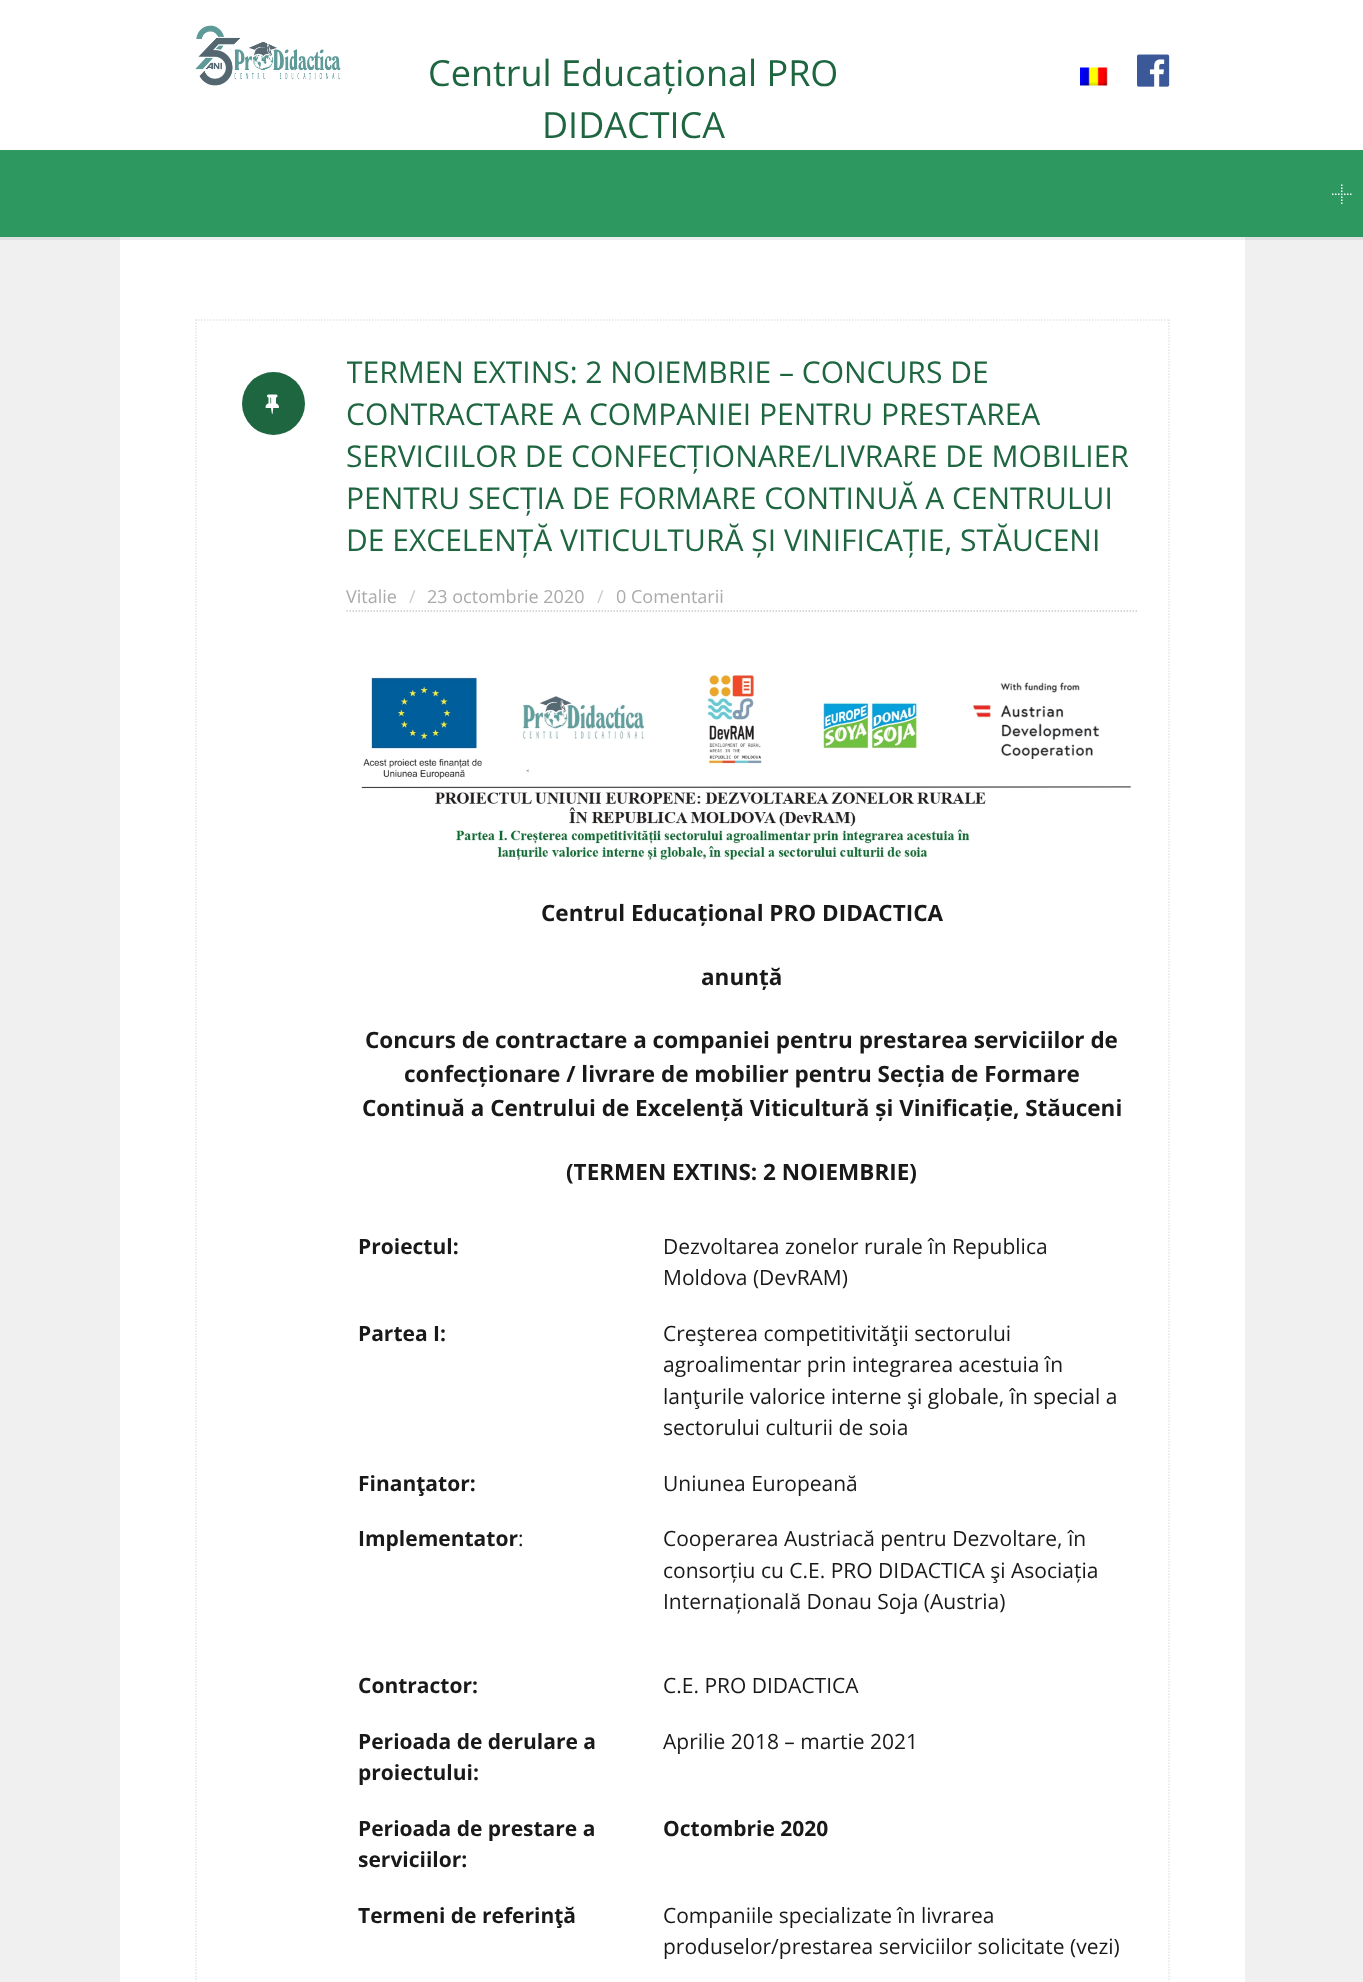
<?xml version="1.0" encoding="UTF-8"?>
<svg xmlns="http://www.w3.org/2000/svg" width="1363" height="1982">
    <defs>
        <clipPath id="clip1"><rect x="347" y="351" width="792" height="210"/></clipPath>
    </defs>
    <rect width="100%" height="100%" fill="#F0F0F0"/>
    <rect x="0" y="0" width="1363" height="150" fill="#FFFFFF"/>
    <image x="195" y="25" width="146" height="61" href="img_01.png"/>
    <text x="428" y="86" font-family="Open Sans" font-size="36" fill="#1E6640">Centrul Educațional PRO</text>
    <text x="542" y="138" font-family="Open Sans" font-size="36" fill="#1E6640">DIDACTICA</text>
    <image x="1080" y="67" width="28" height="19" href="img_02.png"/>
    <image x="1137" y="54" width="33" height="33" href="img_03.png"/>
    <rect x="0" y="150" width="1363" height="87" fill="#2D9960"/>
    <image x="1332" y="184" width="20" height="20" href="img_04.png"/>
    <rect x="120" y="237" width="1125" height="1745" fill="#FFFFFF"/>
    <path d="M 0 237 V 240 H 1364 V 3 V 237 Z" fill="#000000" fill-opacity="0.07"/>
    <path d="M 195 320 H 1170" fill="none" stroke="#E5E5E5" stroke-width="1.5" stroke-dasharray="1.5 1.5"/>
    <path d="M 1169 319.5 V 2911.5" fill="none" stroke="#E5E5E5" stroke-width="1.5" stroke-dasharray="1.5 1.5"/>
    <path d="M 196 319.5 V 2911.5" fill="none" stroke="#E5E5E5" stroke-width="1.5" stroke-dasharray="1.5 1.5"/>
    <circle cx="273.5" cy="403.5" r="31.5" fill="#1E6640"/>
    <image x="265" y="394" width="14" height="20" href="img_05.png"/>
    <g clip-path="url(#clip1)">
        <text x="346" y="383" font-family="Open Sans" font-size="30" fill="#1E6640">TERMEN EXTINS: 2 NOIEMBRIE – CONCURS DE</text>
    </g>
    <text font-family="Open Sans" font-size="30" fill="#1E6640">
        <tspan x="346" y="425">CONTRACTARE A COMPANIEI PENTRU PRESTAREA</tspan>
        <tspan x="346" y="467">SERVICIILOR DE CONFECȚIONARE/LIVRARE DE MOBILIER</tspan>
        <tspan x="346" y="509">PENTRU SECȚIA DE FORMARE CONTINUĂ A CENTRULUI</tspan>
        <tspan x="346" y="551">DE EXCELENȚĂ VITICULTURĂ ȘI VINIFICAȚIE, STĂUCENI</tspan>
    </text>
    <text x="346" y="603" font-family="Open Sans" font-size="18" fill="#AAAAAA">Vitalie</text>
    <text x="409" y="603" font-family="Open Sans" font-size="18" fill="#CCCCCC">/</text>
    <text x="427" y="603" font-family="Open Sans" font-size="18" fill="#AAAAAA">23 octombrie 2020</text>
    <text x="597" y="603" font-family="Open Sans" font-size="18" fill="#CCCCCC">/</text>
    <text x="616" y="603" font-family="Open Sans" font-size="18" fill="#AAAAAA">0 Comentarii</text>
    <path d="M 346.5 611 H 1138.5" fill="none" stroke="#CCCCCC" stroke-width="1.5" stroke-dasharray="1.5 1.5"/>
    <image x="361" y="675" width="770" height="186" href="img_06.png"/>
    <text x="541" y="921" font-family="Open Sans" font-size="22.5" font-weight="700" fill="#191919">Centrul Educațional PRO DIDACTICA</text>
    <text x="701" y="985" font-family="Open Sans" font-size="22.5" font-weight="700" fill="#191919">anunță</text>
    <text x="365" y="1048" font-family="Open Sans" font-size="22.5" font-weight="700" fill="#191919">Concurs de contractare a companiei pentru prestarea serviciilor de</text>
    <text x="404" y="1082" font-family="Open Sans" font-size="22.5" font-weight="700" fill="#191919">confecționare / livrare de mobilier pentru Secția de Formare</text>
    <text x="362" y="1116" font-family="Open Sans" font-size="22.5" font-weight="700" fill="#191919">Continuă a Centrului de Excelență Viticultură și Vinificație, Stăuceni</text>
    <text x="566" y="1180" font-family="Open Sans" font-size="22.5" font-weight="700" fill="#191919">(TERMEN EXTINS: 2 NOIEMBRIE)</text>
    <text x="358" y="1254" font-family="Open Sans" font-size="21" font-weight="700" fill="#191919">Proiectul:</text>
    <text font-family="Open Sans" font-size="21" fill="#191919">
        <tspan x="663" y="1254">Dezvoltarea zonelor rurale în Republica</tspan>
        <tspan x="663" y="1285">Moldova (DevRAM)</tspan>
    </text>
    <text x="358" y="1341" font-family="Open Sans" font-size="21" font-weight="700" fill="#191919">Partea I:</text>
    <text font-family="Open Sans" font-size="21" fill="#191919">
        <tspan x="663" y="1341">Creşterea competitivităţii sectorului</tspan>
        <tspan x="663" y="1372">agroalimentar prin integrarea acestuia în</tspan>
        <tspan x="663" y="1404">lanţurile valorice interne şi globale, în special a</tspan>
        <tspan x="663" y="1435">sectorului culturii de soia</tspan>
    </text>
    <text x="358" y="1491" font-family="Open Sans" font-size="21" font-weight="700" fill="#191919">Finanţator:</text>
    <text x="663" y="1491" font-family="Open Sans" font-size="21" fill="#191919">Uniunea Europeană</text>
    <text x="358" y="1546" font-family="Open Sans" font-size="21" font-weight="700" fill="#191919">Implementator</text>
    <text x="518" y="1546" font-family="Open Sans" font-size="21" fill="#191919">:</text>
    <text font-family="Open Sans" font-size="21" fill="#191919">
        <tspan x="663" y="1546">Cooperarea Austriacă pentru Dezvoltare, în</tspan>
        <tspan x="663" y="1578">consorțiu cu C.E. PRO DIDACTICA şi Asociația</tspan>
        <tspan x="663" y="1609">Internațională Donau Soja (Austria)</tspan>
    </text>
    <text x="358" y="1693" font-family="Open Sans" font-size="21" font-weight="700" fill="#191919">Contractor:</text>
    <text x="663" y="1693" font-family="Open Sans" font-size="21" fill="#191919">C.E. PRO DIDACTICA</text>
    <text font-family="Open Sans" font-size="21" font-weight="700" fill="#191919">
        <tspan x="358" y="1749">Perioada de derulare a</tspan>
        <tspan x="358" y="1780">proiectului:</tspan>
    </text>
    <text x="663" y="1749" font-family="Open Sans" font-size="21" fill="#191919">Aprilie 2018 – martie 2021</text>
    <text font-family="Open Sans" font-size="21" font-weight="700" fill="#191919">
        <tspan x="358" y="1836">Perioada de prestare a</tspan>
        <tspan x="358" y="1867">serviciilor:</tspan>
    </text>
    <text x="663" y="1836" font-family="Open Sans" font-size="21" font-weight="700" fill="#191919">Octombrie 2020</text>
    <text x="358" y="1923" font-family="Open Sans" font-size="21" font-weight="700" fill="#191919">Termeni de referinţă</text>
    <text font-family="Open Sans" font-size="21" fill="#191919">
        <tspan x="663" y="1923">Companiile specializate în livrarea</tspan>
        <tspan x="663" y="1954">produselor/prestarea serviciilor solicitate (vezi)</tspan>
    </text>
</svg>
